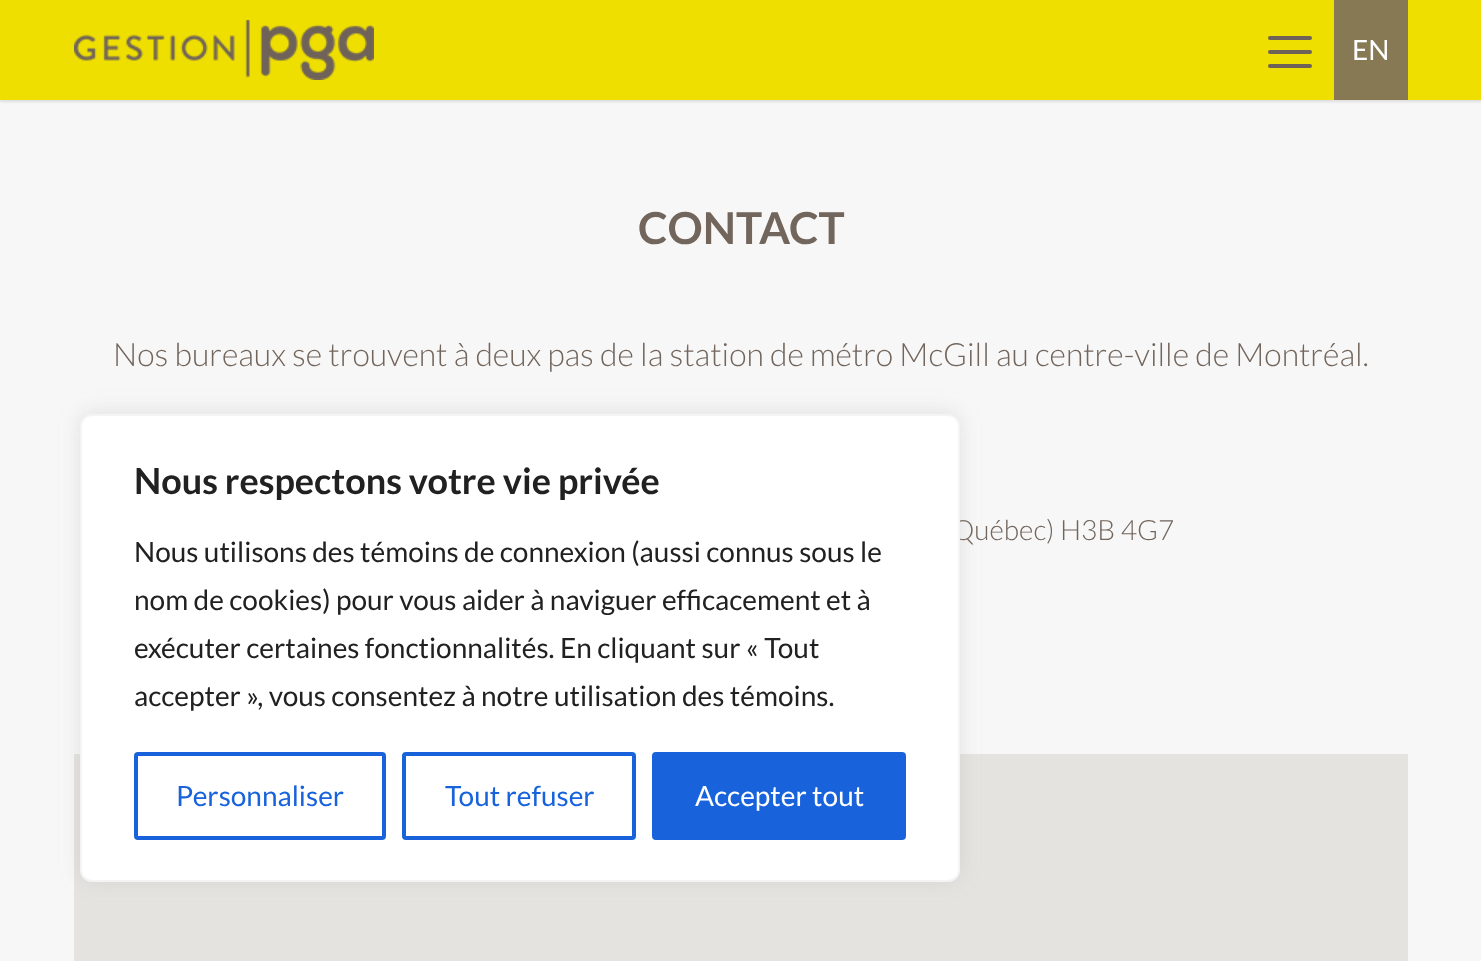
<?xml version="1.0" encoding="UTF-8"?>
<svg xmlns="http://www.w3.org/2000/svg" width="1481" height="961">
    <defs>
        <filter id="blur1" x="-50%" y="-200%" width="200%" height="500%"><feGaussianBlur stdDeviation="1"/></filter>
        <filter id="blur2" x="-50%" y="-200%" width="200%" height="500%"><feGaussianBlur stdDeviation="10"/></filter>
    </defs>
    <rect width="100%" height="100%" fill="#F8F7F7"/>
    <rect x="0" y="2" width="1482" height="100" fill="#000000" fill-opacity="0.1" filter="url(#blur1)"/>
    <rect x="0" y="0" width="1481" height="100" fill="#EFDF00"/>
    <image x="74" y="20" width="300" height="60" href="img_01.png"/>
    <rect x="1268" y="36" width="44" height="4" rx="2" fill="#6E6259"/>
    <rect x="1268" y="50" width="44" height="4" rx="2" fill="#6E6259"/>
    <rect x="1268" y="64" width="44" height="4" rx="2" fill="#6E6259"/>
    <rect x="1334" y="0" width="74" height="100" fill="#867953"/>
    <text x="1352" y="60" font-family="Lato" font-size="28" fill="#FFFFFF">EN</text>
    <text x="638" y="244" font-family="Lato" font-size="44" font-weight="700" fill="#71655C">CONTACT</text>
    <text x="113" y="366" font-family="Lato" font-size="32" font-weight="300" fill="#71655C">Nos bureaux se trouvent à deux pas de la station de métro McGill au centre-ville de Montréal.</text>
    <text x="952" y="540" font-family="Lato" font-size="28" font-weight="300" fill="#71655C">Québec) H3B 4G7</text>
    <rect x="74" y="754" width="1334" height="207" fill="#E5E3DF"/>
    <rect x="80" y="412" width="880" height="468" rx="12" fill="#ACABAB" fill-opacity="0.3" filter="url(#blur2)"/>
    <rect x="81" y="415" width="878" height="466" rx="11" fill="#FFFFFF" stroke="#F4F4F4" stroke-width="2"/>
    <text x="134" y="494" font-family="Lato" font-size="36" font-weight="700" fill="#212121">Nous respectons votre vie privée</text>
    <text font-family="Lato" font-size="28" fill="#212121">
        <tspan x="134" y="562">Nous utilisons des témoins de connexion (aussi connus sous le</tspan>
        <tspan x="134" y="610">nom de cookies) pour vous aider à naviguer efficacement et à</tspan>
        <tspan x="134" y="658">exécuter certaines fonctionnalités. En cliquant sur « Tout</tspan>
        <tspan x="134" y="706">accepter », vous consentez à notre utilisation des témoins.</tspan>
    </text>
    <rect x="136" y="754" width="248" height="84" rx="2" fill="none" stroke="#1863DC" stroke-width="4"/>
    <text x="176" y="806" font-family="Lato" font-size="28" fill="#1863DC">Personnaliser</text>
    <rect x="404" y="754" width="230" height="84" rx="2" fill="none" stroke="#1863DC" stroke-width="4"/>
    <text x="445" y="806" font-family="Lato" font-size="28" fill="#1863DC">Tout refuser</text>
    <rect x="654" y="754" width="250" height="84" rx="2" fill="#1863DC" stroke="#1863DC" stroke-width="4"/>
    <text x="695" y="806" font-family="Lato" font-size="28" fill="#FFFFFF">Accepter tout</text>
</svg>
